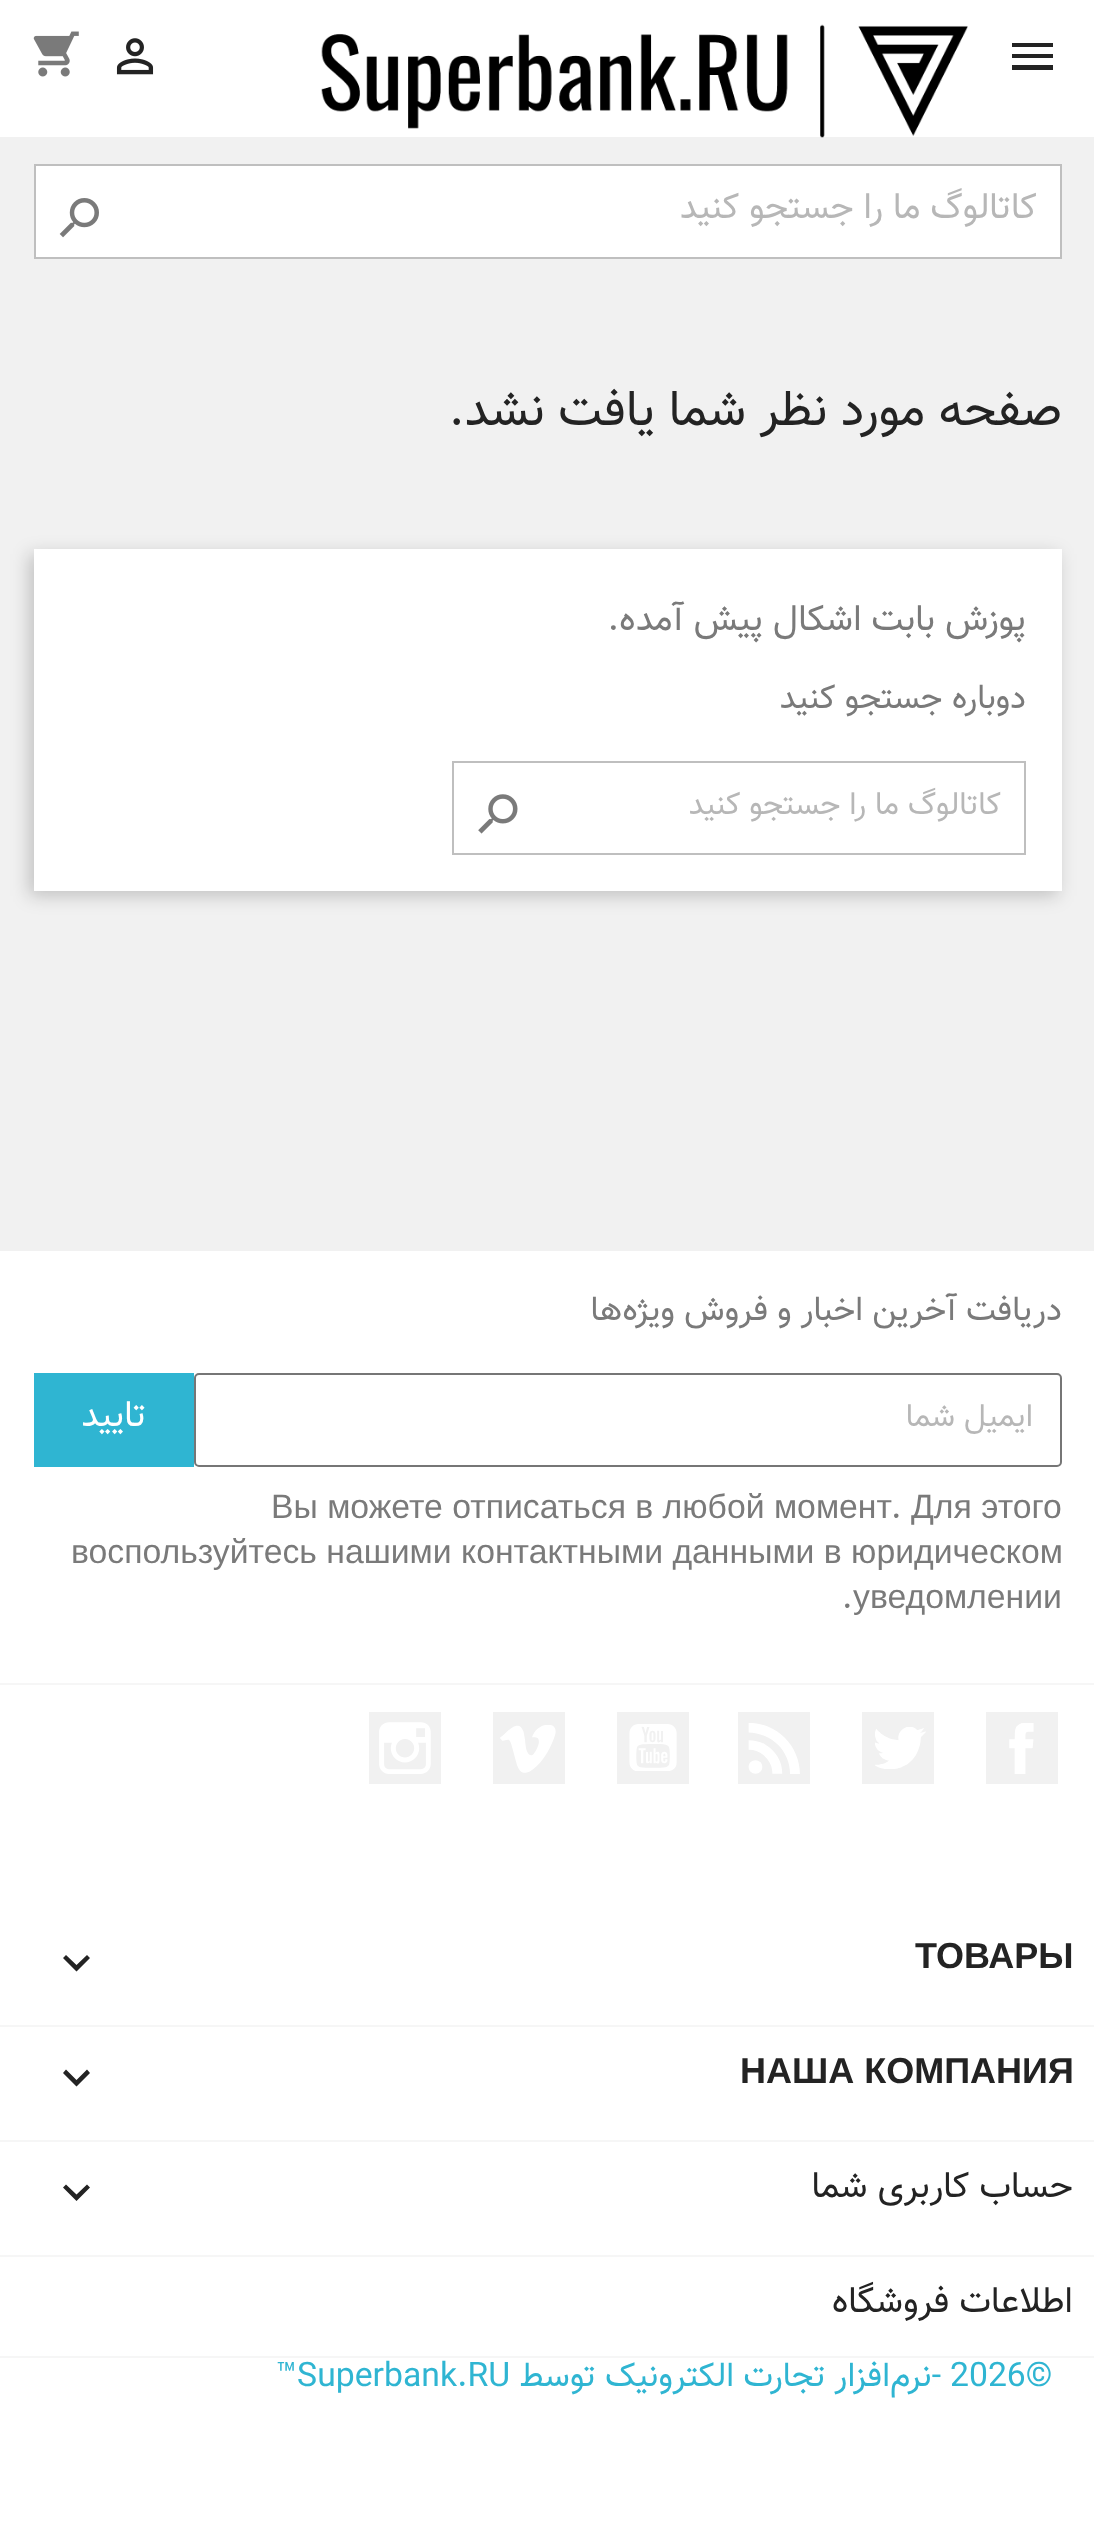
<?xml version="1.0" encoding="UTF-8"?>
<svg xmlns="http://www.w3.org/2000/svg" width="1094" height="2521">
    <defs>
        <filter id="blur1" x="-50%" y="-200%" width="200%" height="500%"><feGaussianBlur stdDeviation="9"/></filter>
    </defs>
    <rect width="100%" height="100%" fill="#FFFFFF"/>
    <rect x="0" y="137" width="1094" height="1114" fill="#F1F1F1"/>
    <path d="M 1012 43 H 1053 V 47 H 1012 Z M 1012 58 V 54 H 1053 V 58 Z M 1012 70 V 65 H 1053 V 70 Z" fill="#232323"/>
    <image x="321" y="24" width="647" height="114" href="img_01.png"/>
    <image x="116" y="38" width="38" height="37" href="img_02.png"/>
    <image x="33" y="31" width="46" height="46" href="img_03.png"/>
    <rect x="35" y="165" width="1026" height="93" fill="#FFFFFF" stroke="#BFBFBF" stroke-width="2"/>
    <text x="1037" y="218" font-family="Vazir" font-size="36" direction="rtl" fill="#B7B7B7">کاتالوگ ما را جستجو کنید</text>
    <image x="59" y="198" width="40" height="40" href="img_04.png"/>
    <text x="1062" y="425" font-family="Vazir" font-size="49.5" direction="rtl" fill="#232323">صفحه مورد نظر شما یافت نشد.</text>
    <rect x="29" y="554" width="1029" height="342" fill="#000000" fill-opacity="0.2" filter="url(#blur1)"/>
    <rect x="34" y="549" width="1028" height="342" fill="#FFFFFF"/>
    <text x="1026" y="630" font-family="Vazir" font-size="36" direction="rtl" fill="#7A7A7A">پوزش بابت اشکال پیش آمده.</text>
    <text x="1026" y="708" font-family="Vazir" font-size="33.75" direction="rtl" fill="#7A7A7A">دوباره جستجو کنید</text>
    <rect x="453" y="762" width="572" height="92" fill="none" stroke="#BFBFBF" stroke-width="2"/>
    <text x="1001" y="814" font-family="Vazir" font-size="31.5" direction="rtl" fill="#B7B7B7">کاتالوگ ما را جستجو کنید</text>
    <image x="478" y="794" width="40" height="40" href="img_05.png"/>
    <rect x="0" y="1683" width="1094" height="2" fill="#F6F6F6"/>
    <text x="1062" y="1320" font-family="Vazir" font-size="33.75" direction="rtl" fill="#7A7A7A">دریافت آخرین اخبار و فروش ویژه‌ها</text>
    <rect x="195" y="1374" width="866" height="92" rx="4" fill="none" stroke="#767676" stroke-width="2"/>
    <text x="1033" y="1426" font-family="Vazir" font-size="31.5" direction="rtl" fill="#B7B7B7">ایمیل شما</text>
    <rect x="34" y="1373" width="160" height="94" fill="#2FB5D2"/>
    <text x="146" y="1426" font-family="Vazir" font-size="36" direction="rtl" fill="#FFFFFF">تاييد</text>
    <text x="911" y="1518" font-family="Liberation Sans" font-size="33.75" fill="#7A7A7A">Для этого</text>
    <text x="891" y="1518" font-family="Vazir" font-size="33.75" fill="#7A7A7A">.</text>
    <text x="271" y="1518" font-family="Liberation Sans" font-size="33.75" fill="#7A7A7A">Вы можете отписаться в любой момент</text>
    <text x="71" y="1563" font-family="Liberation Sans" font-size="33.75" fill="#7A7A7A">воспользуйтесь нашими контактными данными в юридическом</text>
    <text x="853" y="1608" font-family="Liberation Sans" font-size="33.75" fill="#7A7A7A">уведомлении</text>
    <text x="842" y="1608" font-family="Vazir" font-size="33.75" fill="#7A7A7A">.</text>
    <rect x="986" y="1712" width="72" height="72" fill="#F1F1F1"/>
    <image x="1009" y="1723" width="25" height="51" href="img_06.png"/>
    <rect x="862" y="1712" width="72" height="72" fill="#F1F1F1"/>
    <image x="875" y="1727" width="51" height="42" href="img_07.png"/>
    <rect x="738" y="1712" width="72" height="72" fill="#F1F1F1"/>
    <image x="748" y="1723" width="52" height="51" href="img_08.png"/>
    <rect x="617" y="1712" width="72" height="72" fill="#F1F1F1"/>
    <image x="629" y="1724" width="48" height="47" href="img_09.png"/>
    <rect x="493" y="1712" width="72" height="72" fill="#F1F1F1"/>
    <image x="500" y="1725" width="56" height="48" href="img_10.png"/>
    <rect x="369" y="1712" width="72" height="72" fill="#F1F1F1"/>
    <image x="379" y="1722" width="52" height="52" href="img_11.png"/>
    <rect x="0" y="2025" width="1094" height="2" fill="#F6F6F6"/>
    <text x="915" y="1968" font-family="Liberation Sans" font-size="36" font-weight="700" fill="#232323">ТОВАРЫ</text>
    <path d="M 87 1955 L 76.5 1965 L 66 1955 L 63 1958 L 76.5 1971.5 L 90 1958 Z" fill="#232323"/>
    <rect x="0" y="2140" width="1094" height="2" fill="#F6F6F6"/>
    <text x="740" y="2083" font-family="Liberation Sans" font-size="36" font-weight="700" fill="#232323">НАША КОМПАНИЯ</text>
    <path d="M 87 2069.5 L 76.5 2080 L 66 2069.5 L 63 2073 L 76.5 2086.5 L 90 2073 Z" fill="#232323"/>
    <rect x="0" y="2255" width="1094" height="2" fill="#F6F6F6"/>
    <text x="1073" y="2197" font-family="Vazir" font-size="36" direction="rtl" fill="#232323">حساب کاربری شما</text>
    <path d="M 87 2184.5 L 76.5 2194.5 L 66 2184.5 L 63 2187.5 L 76.5 2201 L 90 2187.5 Z" fill="#232323"/>
    <rect x="0" y="2356" width="1094" height="2" fill="#F6F6F6"/>
    <text x="1073" y="2312" font-family="Vazir" font-size="36" direction="rtl" fill="#232323">اطلاعات فروشگاه</text>
    <text x="950" y="2386" font-family="Vazir" font-size="33.75" fill="#2FB5D2">2026©</text>
    <text x="941" y="2386" font-family="Vazir" font-size="33.75" direction="rtl" fill="#2FB5D2">-نرم‌افزار تجارت الکترونیک توسط</text>
    <text x="276" y="2386" font-family="Vazir" font-size="33.75" fill="#2FB5D2">™Superbank.RU</text>
</svg>
